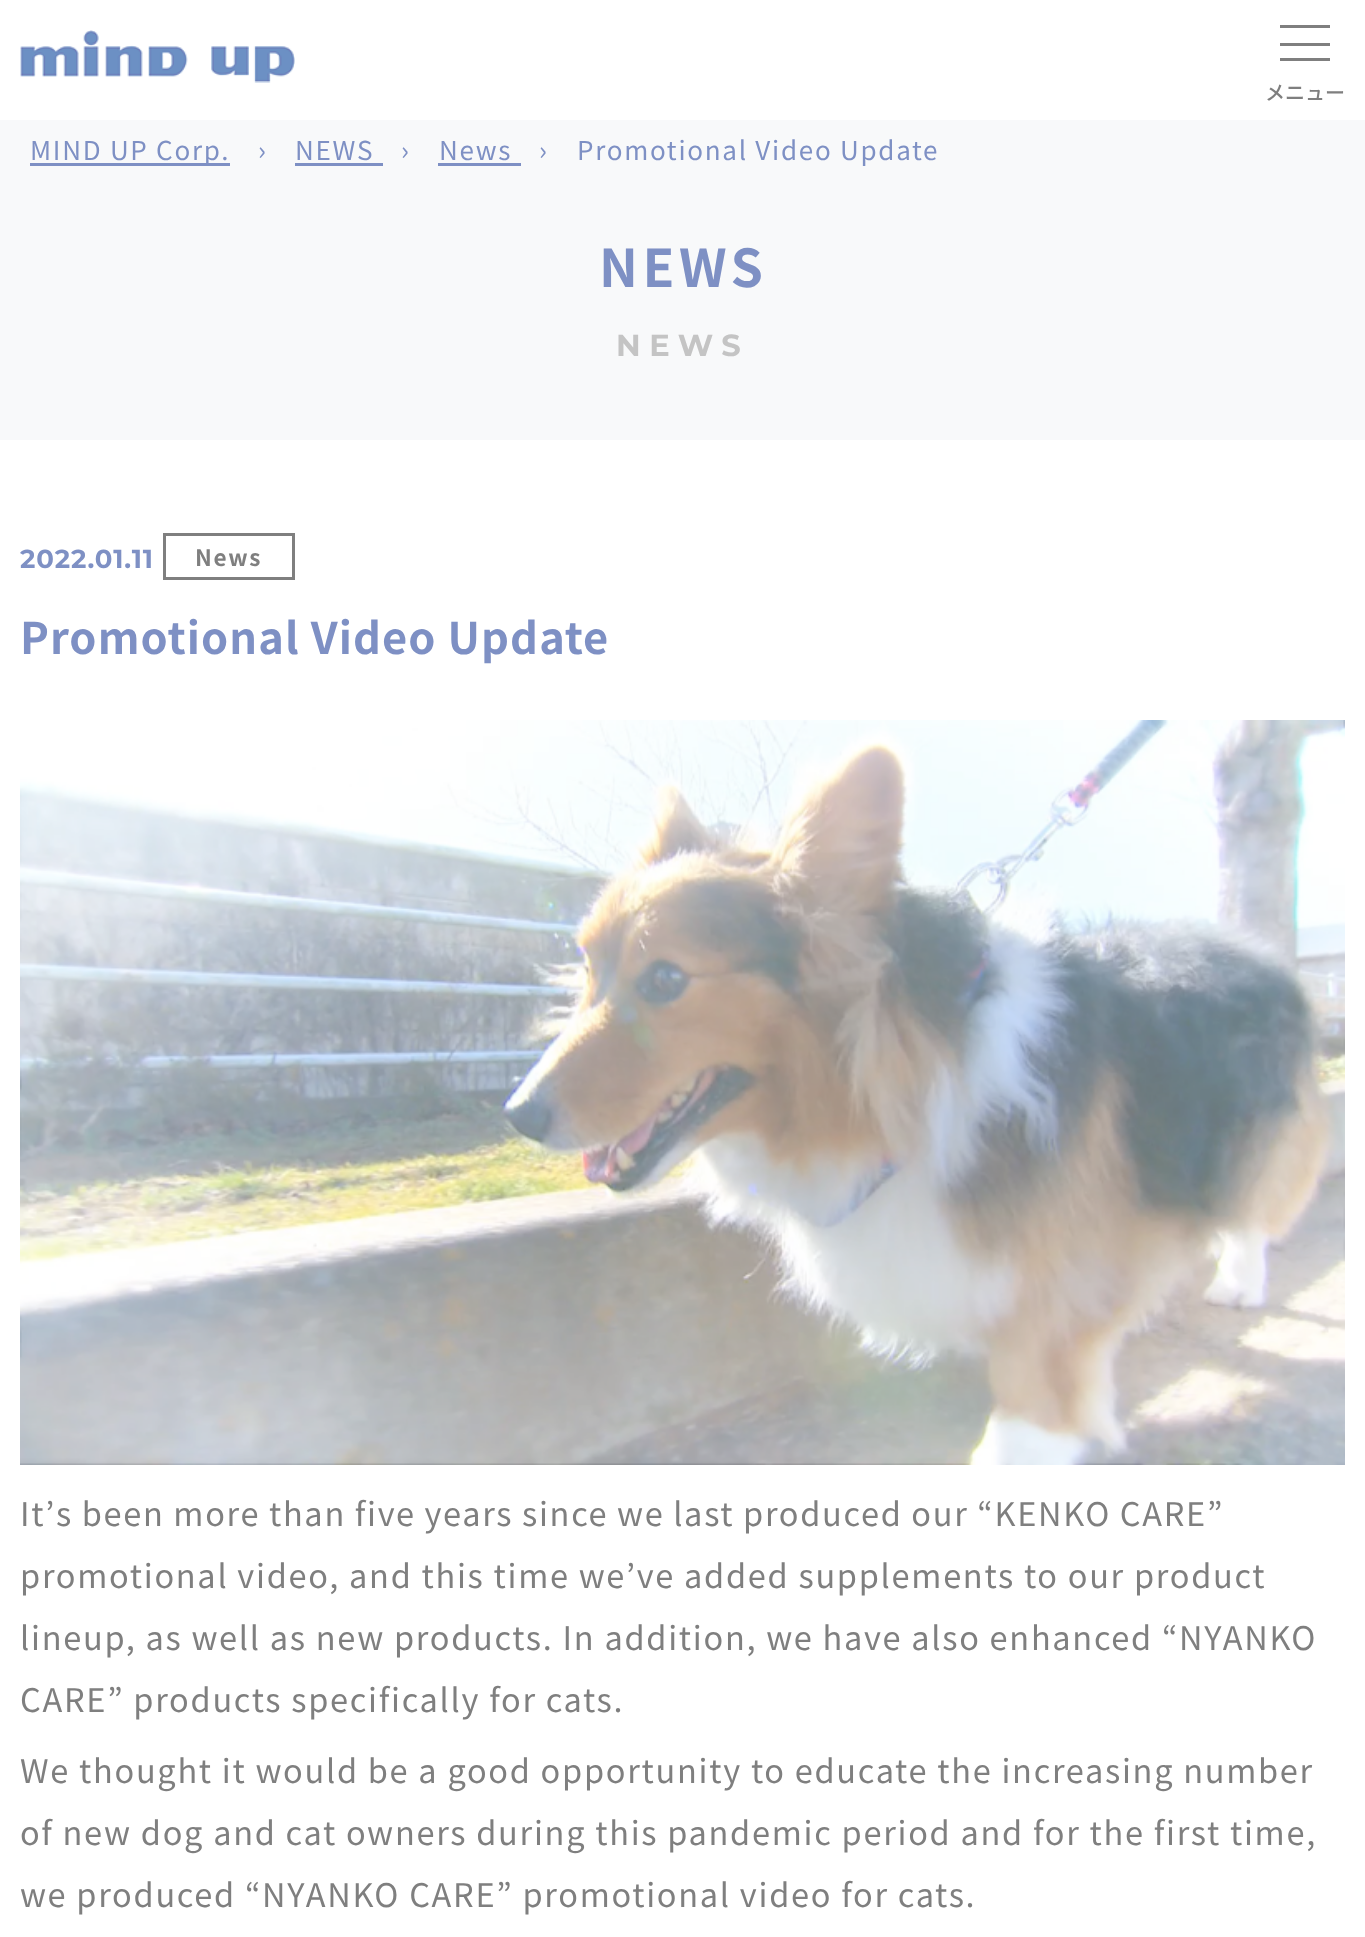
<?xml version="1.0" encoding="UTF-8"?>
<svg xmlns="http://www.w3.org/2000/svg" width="1365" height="1937">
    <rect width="100%" height="100%" fill="#FFFFFF"/>
    <image x="20" y="30" width="275" height="53" href="img_01.png"/>
    <rect x="1280" y="25" width="50" height="3" fill="#7F7F7F"/>
    <rect x="1280" y="43" width="50" height="3" fill="#7F7F7F"/>
    <rect x="1280" y="58" width="50" height="3" fill="#7F7F7F"/>
    <text x="1265" y="100" font-family="Noto Sans JP" font-size="20" font-weight="500" fill="#7F7F7F">メニュー</text>
    <rect x="0" y="120" width="1365" height="320" fill="#F8F9FA"/>
    <rect x="30" y="163" width="200" height="3" fill="#7E90C4"/>
    <text x="30" y="160" font-family="Noto Sans JP" font-size="26" letter-spacing="1.73" fill="#7E90C4">MIND UP Corp.</text>
    <text x="258" y="160" font-family="Noto Sans JP" font-size="26" letter-spacing="1.73" fill="#7E90C4">›</text>
    <text x="295" y="160" font-family="Noto Sans JP" font-size="26" letter-spacing="1.73" fill="#7E90C4">NEWS</text>
    <rect x="295" y="163" width="88" height="3" fill="#7E90C4"/>
    <text x="401" y="160" font-family="Noto Sans JP" font-size="26" letter-spacing="1.73" fill="#7E90C4">›</text>
    <text x="439" y="160" font-family="Noto Sans JP" font-size="26" letter-spacing="1.73" fill="#7E90C4">News</text>
    <rect x="438" y="163" width="83" height="3" fill="#7E90C4"/>
    <text x="539" y="160" font-family="Noto Sans JP" font-size="26" letter-spacing="1.73" fill="#7E90C4">›</text>
    <text x="577" y="160" font-family="Noto Sans JP" font-size="26" letter-spacing="1.73" fill="#7E90C4">Promotional Video Update</text>
    <text x="599" y="287" font-family="Noto Sans JP" font-size="52" font-weight="700" letter-spacing="4.5" fill="#7E90C4">NEWS</text>
    <text x="616" y="356" font-family="Montserrat" font-size="30.5" font-weight="700" letter-spacing="8.5" fill="#C4C4C4">NEWS</text>
    <text x="20" y="568" font-family="Montserrat" font-size="26" font-weight="700" letter-spacing="0.9" fill="#7E90C4">2022.01.11</text>
    <rect x="164.5" y="534.5" width="129" height="44" fill="none" stroke="#7F7F7F" stroke-width="3"/>
    <text x="195" y="566" font-family="Noto Sans JP" font-size="22.5" font-weight="700" letter-spacing="1.73" fill="#7F7F7F">News</text>
    <text x="20" y="654" font-family="Noto Sans JP" font-size="43.4" font-weight="700" letter-spacing="1.1" fill="#7E90C4">Promotional Video Update</text>
    <image x="20" y="720" width="1325" height="745" href="img_02.png"/>
    <text font-family="Noto Sans JP" font-size="32.5" letter-spacing="1.73" fill="#7F7F7F">
        <tspan x="20" y="1526" word-spacing="-0.25">It’s been more than five years since we last produced our “KENKO CARE”</tspan>
        <tspan x="20" y="1588">promotional video, and this time we’ve added supplements to our product</tspan>
        <tspan x="20" y="1650">lineup, as well as new products. In addition, we have also enhanced “NYANKO</tspan>
        <tspan x="20" y="1712">CARE” products specifically for cats.</tspan>
    </text>
    <text font-family="Noto Sans JP" font-size="32.5" letter-spacing="1.73" fill="#7F7F7F">
        <tspan x="20" y="1783">We thought it would be a good opportunity to educate the increasing number</tspan>
        <tspan x="20" y="1845">of new dog and cat owners during this pandemic period and for the first time,</tspan>
        <tspan x="20" y="1907">we produced “NYANKO CARE” promotional video for cats.</tspan>
    </text>
</svg>
